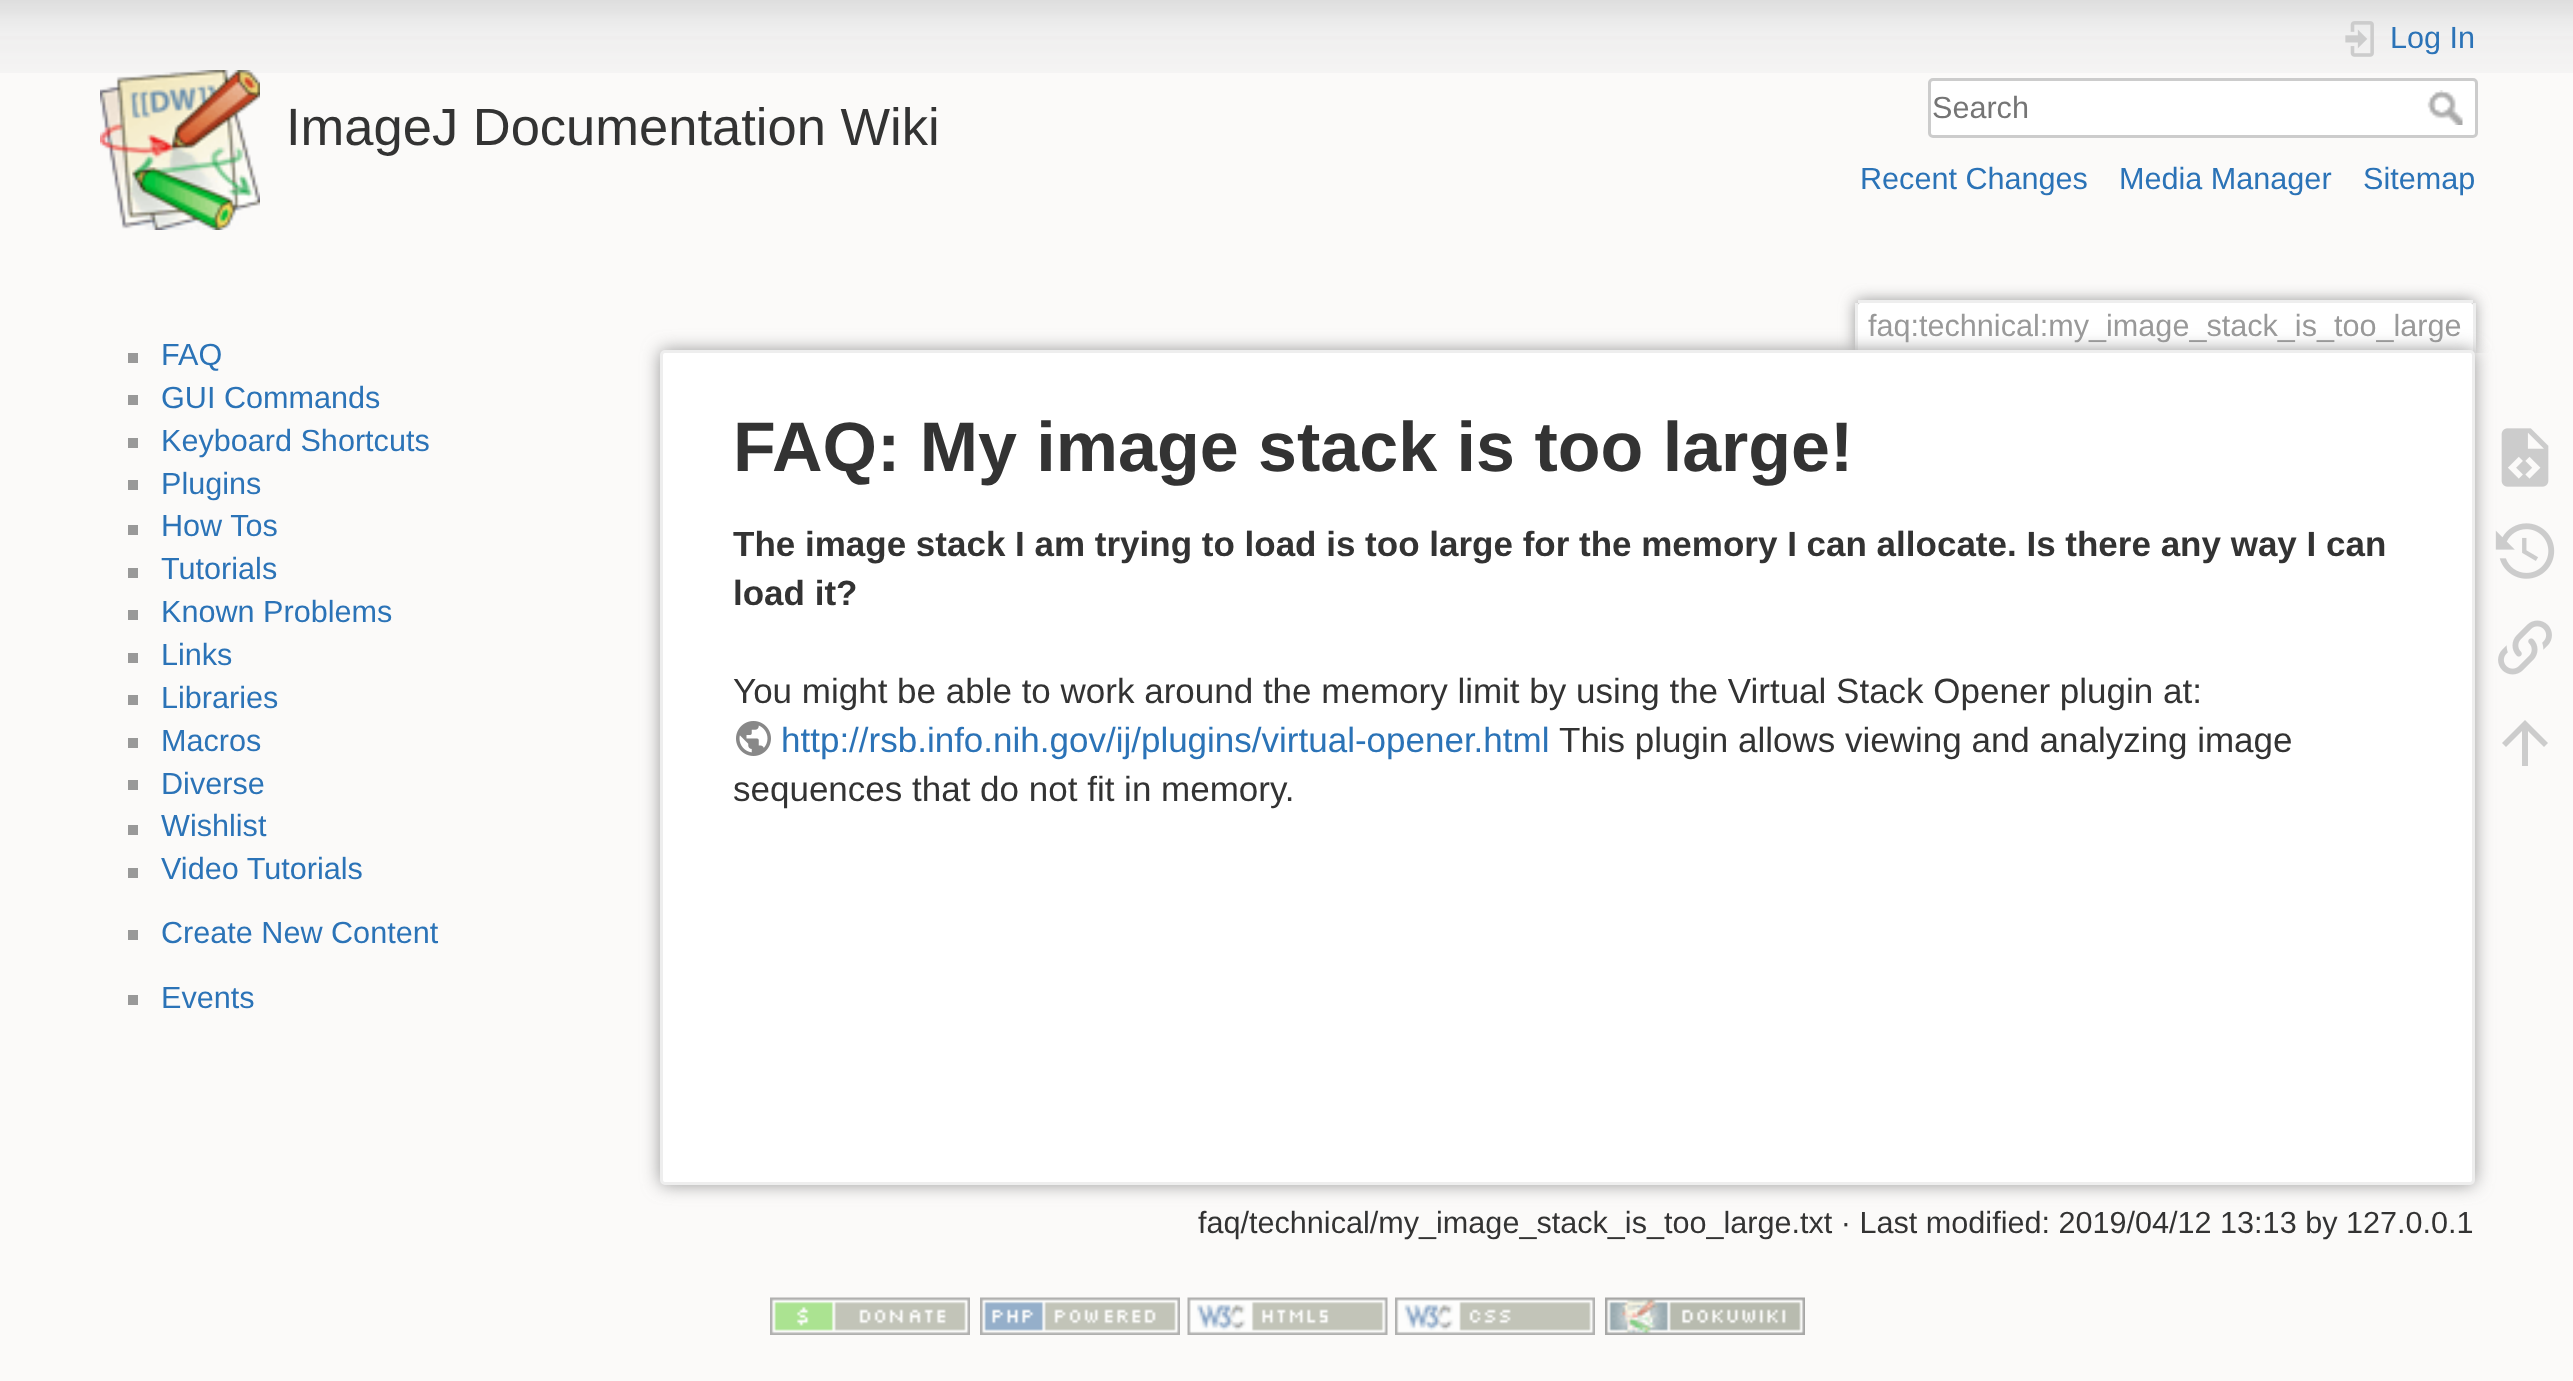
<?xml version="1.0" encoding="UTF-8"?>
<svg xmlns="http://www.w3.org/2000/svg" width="2573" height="1381">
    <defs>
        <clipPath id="clip1"><rect x="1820" y="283" width="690" height="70"/></clipPath>
        <filter id="blur1" x="-50%" y="-200%" width="200%" height="500%"><feGaussianBlur stdDeviation="7.5"/></filter>
        <filter id="blur2" x="-50%" y="-200%" width="200%" height="500%"><feGaussianBlur stdDeviation="9"/></filter>
    </defs>
    <rect width="100%" height="100%" fill="#FBFAF9"/>
    <image x="0" y="0" width="2573" height="73" href="img_01.png"/>
    <image x="100" y="70" width="160" height="160" href="img_02.png"/>
    <text x="286" y="145" font-family="Liberation Sans" font-size="52.5" fill="#333333">ImageJ Documentation Wiki</text>
    <image x="2345" y="21" width="29" height="36" href="img_03.png"/>
    <text x="2390" y="48" font-family="Liberation Sans" font-size="30.6" fill="#2B73B7">Log In</text>
    <rect x="1929.5" y="79.5" width="547" height="57" rx="3.5" fill="#FFFFFF" stroke="#CCCCCC" stroke-width="3"/>
    <text x="1932" y="118" font-family="Liberation Sans" font-size="30.6" fill="#757575">Search</text>
    <image x="2427" y="90" width="36" height="35" href="img_04.png"/>
    <text x="1860" y="189" font-family="Liberation Sans" font-size="30.6" fill="#2B73B7">Recent Changes</text>
    <text x="2119" y="189" font-family="Liberation Sans" font-size="30.6" fill="#2B73B7">Media Manager</text>
    <text x="2363" y="189" font-family="Liberation Sans" font-size="30.6" fill="#2B73B7">Sitemap</text>
    <rect x="128" y="353" width="10" height="10" fill="#999999"/>
    <text x="161" y="365" font-family="Liberation Sans" font-size="30.6" fill="#2B73B7">FAQ</text>
    <rect x="128" y="395" width="10" height="10" fill="#999999"/>
    <text x="161" y="408" font-family="Liberation Sans" font-size="30.6" fill="#2B73B7">GUI Commands</text>
    <rect x="128" y="438" width="10" height="10" fill="#999999"/>
    <text x="161" y="451" font-family="Liberation Sans" font-size="30.6" fill="#2B73B7">Keyboard Shortcuts</text>
    <rect x="128" y="480" width="10" height="10" fill="#999999"/>
    <text x="161" y="494" font-family="Liberation Sans" font-size="30.6" fill="#2B73B7">Plugins</text>
    <rect x="128" y="525" width="10" height="10" fill="#999999"/>
    <text x="161" y="536" font-family="Liberation Sans" font-size="30.6" fill="#2B73B7">How Tos</text>
    <rect x="128" y="568" width="10" height="10" fill="#999999"/>
    <text x="161" y="579" font-family="Liberation Sans" font-size="30.6" fill="#2B73B7">Tutorials</text>
    <rect x="128" y="610" width="10" height="10" fill="#999999"/>
    <text x="161" y="622" font-family="Liberation Sans" font-size="30.6" fill="#2B73B7">Known Problems</text>
    <rect x="128" y="653" width="10" height="10" fill="#999999"/>
    <text x="161" y="665" font-family="Liberation Sans" font-size="30.6" fill="#2B73B7">Links</text>
    <rect x="128" y="695" width="10" height="10" fill="#999999"/>
    <text x="161" y="708" font-family="Liberation Sans" font-size="30.6" fill="#2B73B7">Libraries</text>
    <rect x="128" y="738" width="10" height="10" fill="#999999"/>
    <text x="161" y="751" font-family="Liberation Sans" font-size="30.6" fill="#2B73B7">Macros</text>
    <rect x="128" y="780" width="10" height="10" fill="#999999"/>
    <text x="161" y="794" font-family="Liberation Sans" font-size="30.6" fill="#2B73B7">Diverse</text>
    <rect x="128" y="825" width="10" height="10" fill="#999999"/>
    <text x="161" y="836" font-family="Liberation Sans" font-size="30.6" fill="#2B73B7">Wishlist</text>
    <rect x="128" y="868" width="10" height="10" fill="#999999"/>
    <text x="161" y="879" font-family="Liberation Sans" font-size="30.6" fill="#2B73B7">Video Tutorials</text>
    <rect x="128" y="930" width="10" height="10" fill="#999999"/>
    <text x="161" y="943" font-family="Liberation Sans" font-size="30.6" fill="#2B73B7">Create New Content</text>
    <rect x="128" y="995" width="10" height="10" fill="#999999"/>
    <text x="161" y="1008" font-family="Liberation Sans" font-size="30.6" fill="#2B73B7">Events</text>
    <g clip-path="url(#clip1)">
        <rect x="1855" y="300" width="620" height="53" rx="5" fill="#999999" filter="url(#blur1)"/>
    </g>
    <path d="M 1860.5 303 H 2470.5 C 2472 303 2473 304 2473 305.5 V 353 H 1858 V 305.5 C 1858 304 1859 303 1860.5 303 Z" fill="#FFFFFF"/>
    <rect x="1858" y="300" width="615" height="3" fill="#EEEEEE"/>
    <rect x="2473" y="303" width="3" height="50" fill="#EEEEEE"/>
    <rect x="1855" y="303" width="3" height="50" fill="#EEEEEE"/>
    <text x="1868" y="336" font-family="Liberation Sans" font-size="30.6" fill="#999999">faq:technical:my_image_stack_is_too_large</text>
    <rect x="660" y="350" width="1815" height="835" rx="5" fill="#999999" filter="url(#blur2)"/>
    <rect x="661.5" y="351.5" width="1812" height="832" rx="3.5" fill="#FFFFFF" stroke="#EEEEEE" stroke-width="3"/>
    <text x="733" y="471" font-family="Liberation Sans" font-size="70" font-weight="700" fill="#333333">FAQ: My image stack is too large!</text>
    <text font-family="Liberation Sans" font-size="35" font-weight="700" fill="#333333">
        <tspan x="733" y="556">The image stack I am trying to load is too large for the memory I can allocate. Is there any way I can</tspan>
        <tspan x="733" y="605">load it?</tspan>
    </text>
    <text x="733" y="703" font-family="Liberation Sans" font-size="35" fill="#333333">You might be able to work around the memory limit by using the Virtual Stack Opener plugin at:</text>
    <image x="736" y="721" width="35" height="35" href="img_05.png"/>
    <text x="781" y="752" font-family="Liberation Sans" font-size="35" fill="#2B73B7">http://rsb.info.nih.gov/ij/plugins/virtual-opener.html</text>
    <text x="1559" y="752" font-family="Liberation Sans" font-size="35" fill="#333333">This plugin allows viewing and analyzing image</text>
    <text x="733" y="801" font-family="Liberation Sans" font-size="35" fill="#333333">sequences that do not fit in memory.</text>
    <text x="1198" y="1233" font-family="Liberation Sans" font-size="30.6" fill="#333333">faq/technical/my_image_stack_is_too_large.txt · Last modified: 2019/04/12 13:13 by 127.0.0.1</text>
    <image x="2501" y="428" width="48" height="59" href="img_06.png"/>
    <image x="2495" y="523" width="60" height="56" href="img_07.png"/>
    <image x="2498" y="620" width="54" height="55" href="img_08.png"/>
    <path d="M 2528 766 H 2522 V 731 L 2506 747 L 2502 743 L 2525 720 L 2548 743 L 2544 747 L 2528 731 Z" fill="#CCCCCC"/>
    <image x="770" y="1297" width="200" height="38" href="img_09.png"/>
    <image x="980" y="1297" width="200" height="38" href="img_10.png"/>
    <image x="1187" y="1297" width="201" height="38" href="img_11.png"/>
    <image x="1395" y="1297" width="200" height="38" href="img_12.png"/>
    <image x="1605" y="1297" width="200" height="38" href="img_13.png"/>
</svg>
